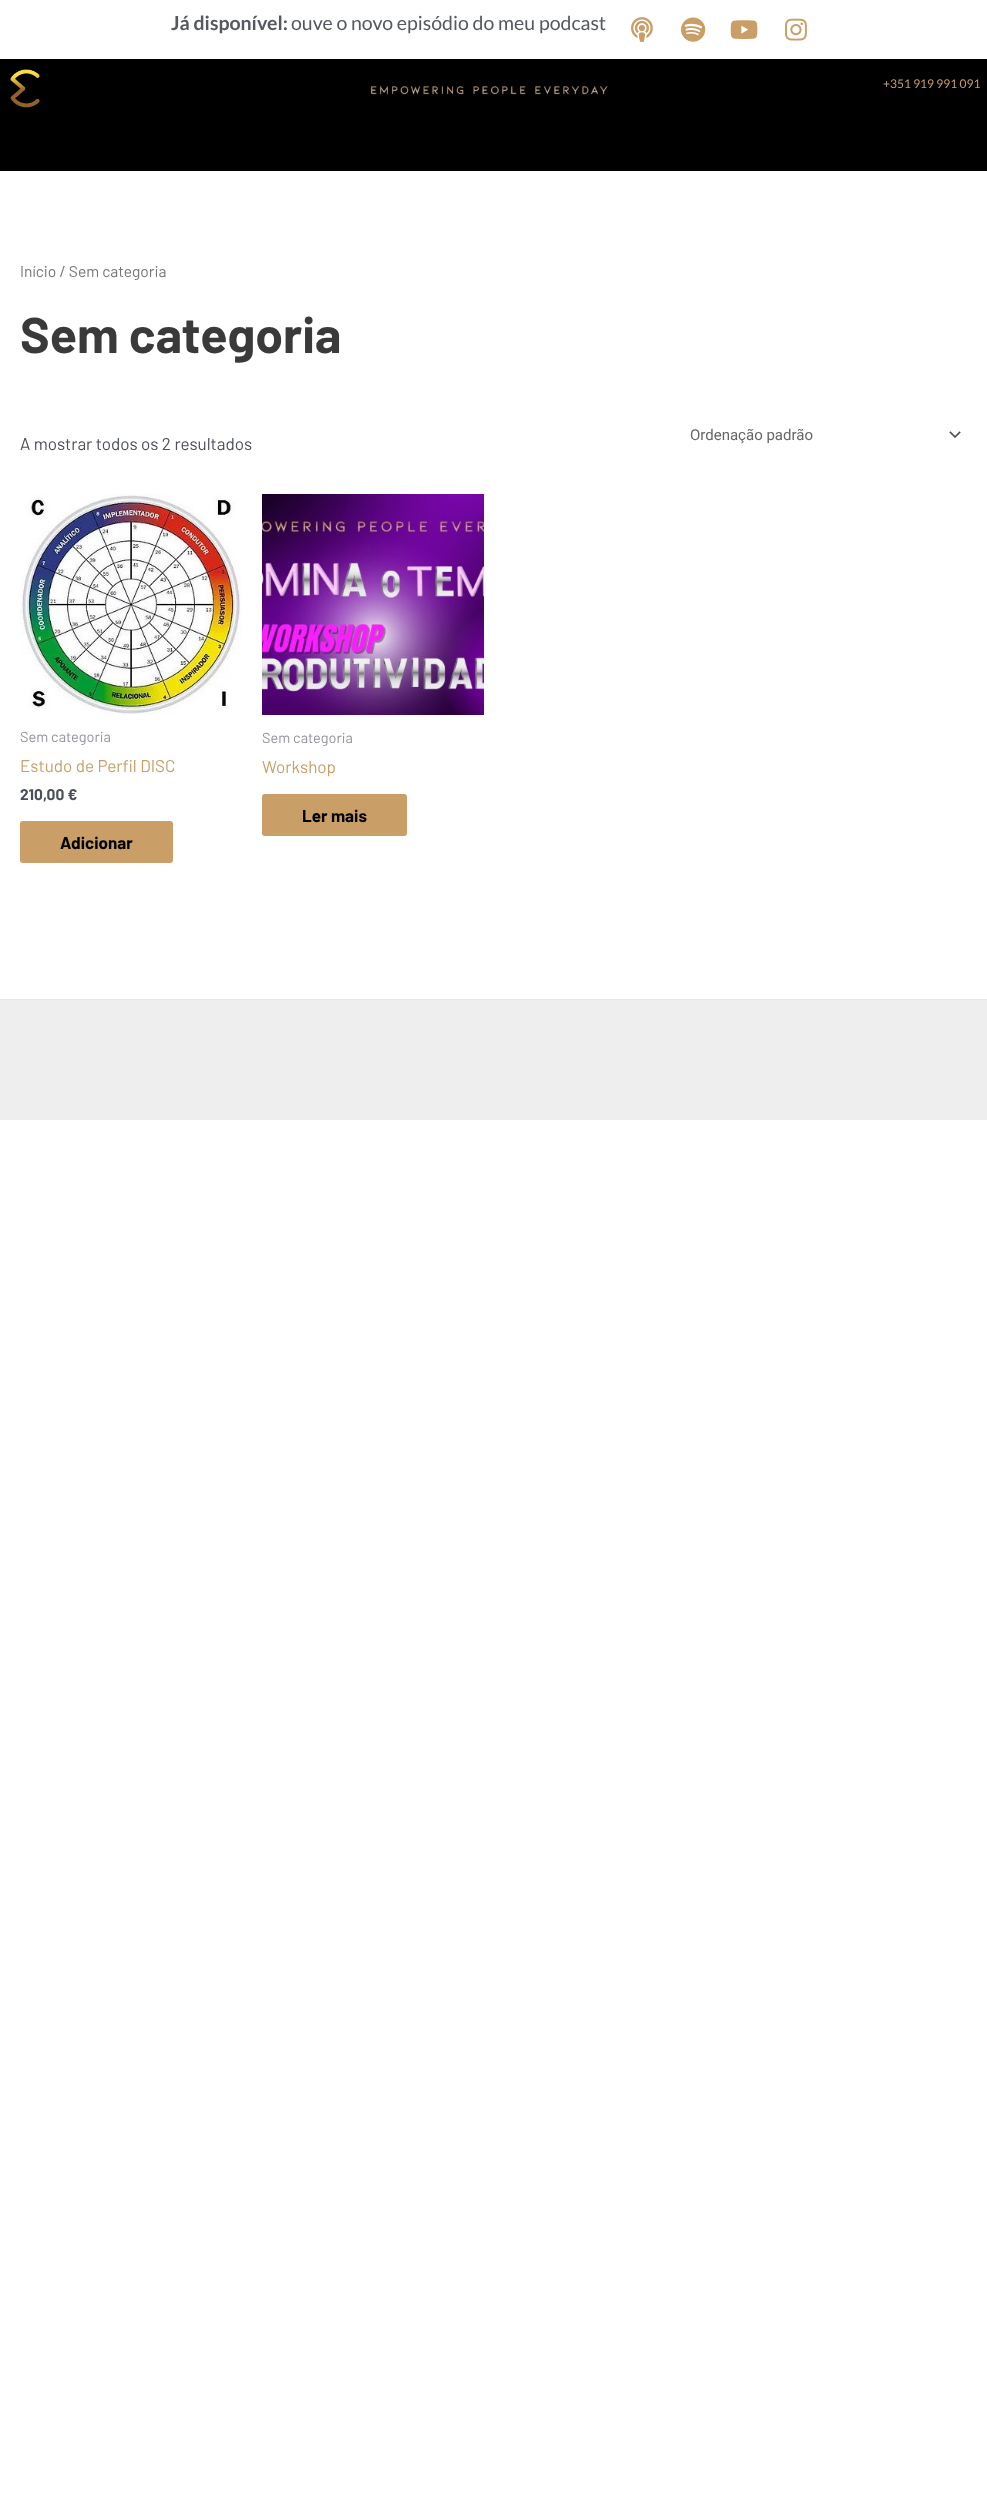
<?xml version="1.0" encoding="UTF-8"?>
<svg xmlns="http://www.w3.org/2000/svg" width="987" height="2499">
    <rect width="100%" height="100%" fill="#FFFFFF"/>
    <text x="171" y="30" font-family="Lato" font-size="19.5" font-weight="700" fill="#54595F">Já disponível:</text>
    <text x="291" y="30" font-family="Lato" font-size="19.5" fill="#54595F">ouve o novo episódio do meu podcast</text>
    <image x="631" y="17" width="22" height="25" href="img_01.png"/>
    <image x="681" y="17" width="25" height="25" href="img_02.png"/>
    <image x="730" y="20" width="28" height="19" href="img_03.png"/>
    <image x="785" y="18" width="22" height="23" href="img_04.png"/>
    <rect x="0" y="59" width="987" height="112" fill="#000000"/>
    <image x="10" y="69" width="30" height="39" href="img_05.png"/>
    <text x="883" y="88" font-family="Lato" font-size="12" fill="#C99E67">+351 919 991 091</text>
    <image x="370" y="85" width="238" height="10" href="img_06.png"/>
    <text x="20" y="277" font-family="Barlow" font-size="15.6" fill="#777777">Início / Sem categoria</text>
    <text x="20" y="353" font-family="Barlow" font-size="50" font-weight="700" fill="#3A3A3A">Sem categoria</text>
    <text x="20" y="450" font-family="Barlow" font-size="17" fill="#4B4F58">A mostrar todos os 2 resultados</text>
    <image x="949" y="431" width="12" height="7" href="img_07.png"/>
    <text x="690" y="440" font-family="Roboto" font-size="15" fill="#666666">Ordenação padrão</text>
    <image x="20" y="494" width="222" height="221" href="img_08.png"/>
    <text x="20" y="742" font-family="Barlow" font-size="14.5" fill="#93959B">Sem categoria</text>
    <text x="20" y="772" font-family="Barlow" font-size="17" fill="#C99E67">Estudo de Perfil DISC</text>
    <text x="20" y="800" font-family="Barlow" font-size="15.5" font-weight="700" fill="#4B4F58">210,00 €</text>
    <rect x="20" y="821" width="153" height="42" rx="3" fill="#C99E67"/>
    <text x="60" y="849" font-family="Barlow" font-size="17" font-weight="700" fill="#000000">Adicionar</text>
    <image x="262" y="494" width="222" height="221" href="img_09.png"/>
    <text x="262" y="743" font-family="Barlow" font-size="14.5" fill="#93959B">Sem categoria</text>
    <text x="262" y="773" font-family="Barlow" font-size="17" fill="#C99E67">Workshop</text>
    <rect x="262" y="794" width="145" height="42" rx="3" fill="#C99E67"/>
    <text x="302" y="822" font-family="Barlow" font-size="17" font-weight="700" fill="#000000">Ler mais</text>
    <rect x="0" y="1000" width="987" height="120" fill="#EEEEEE"/>
    <rect x="0" y="999" width="987" height="1" fill="#E5E5E5"/>
</svg>
